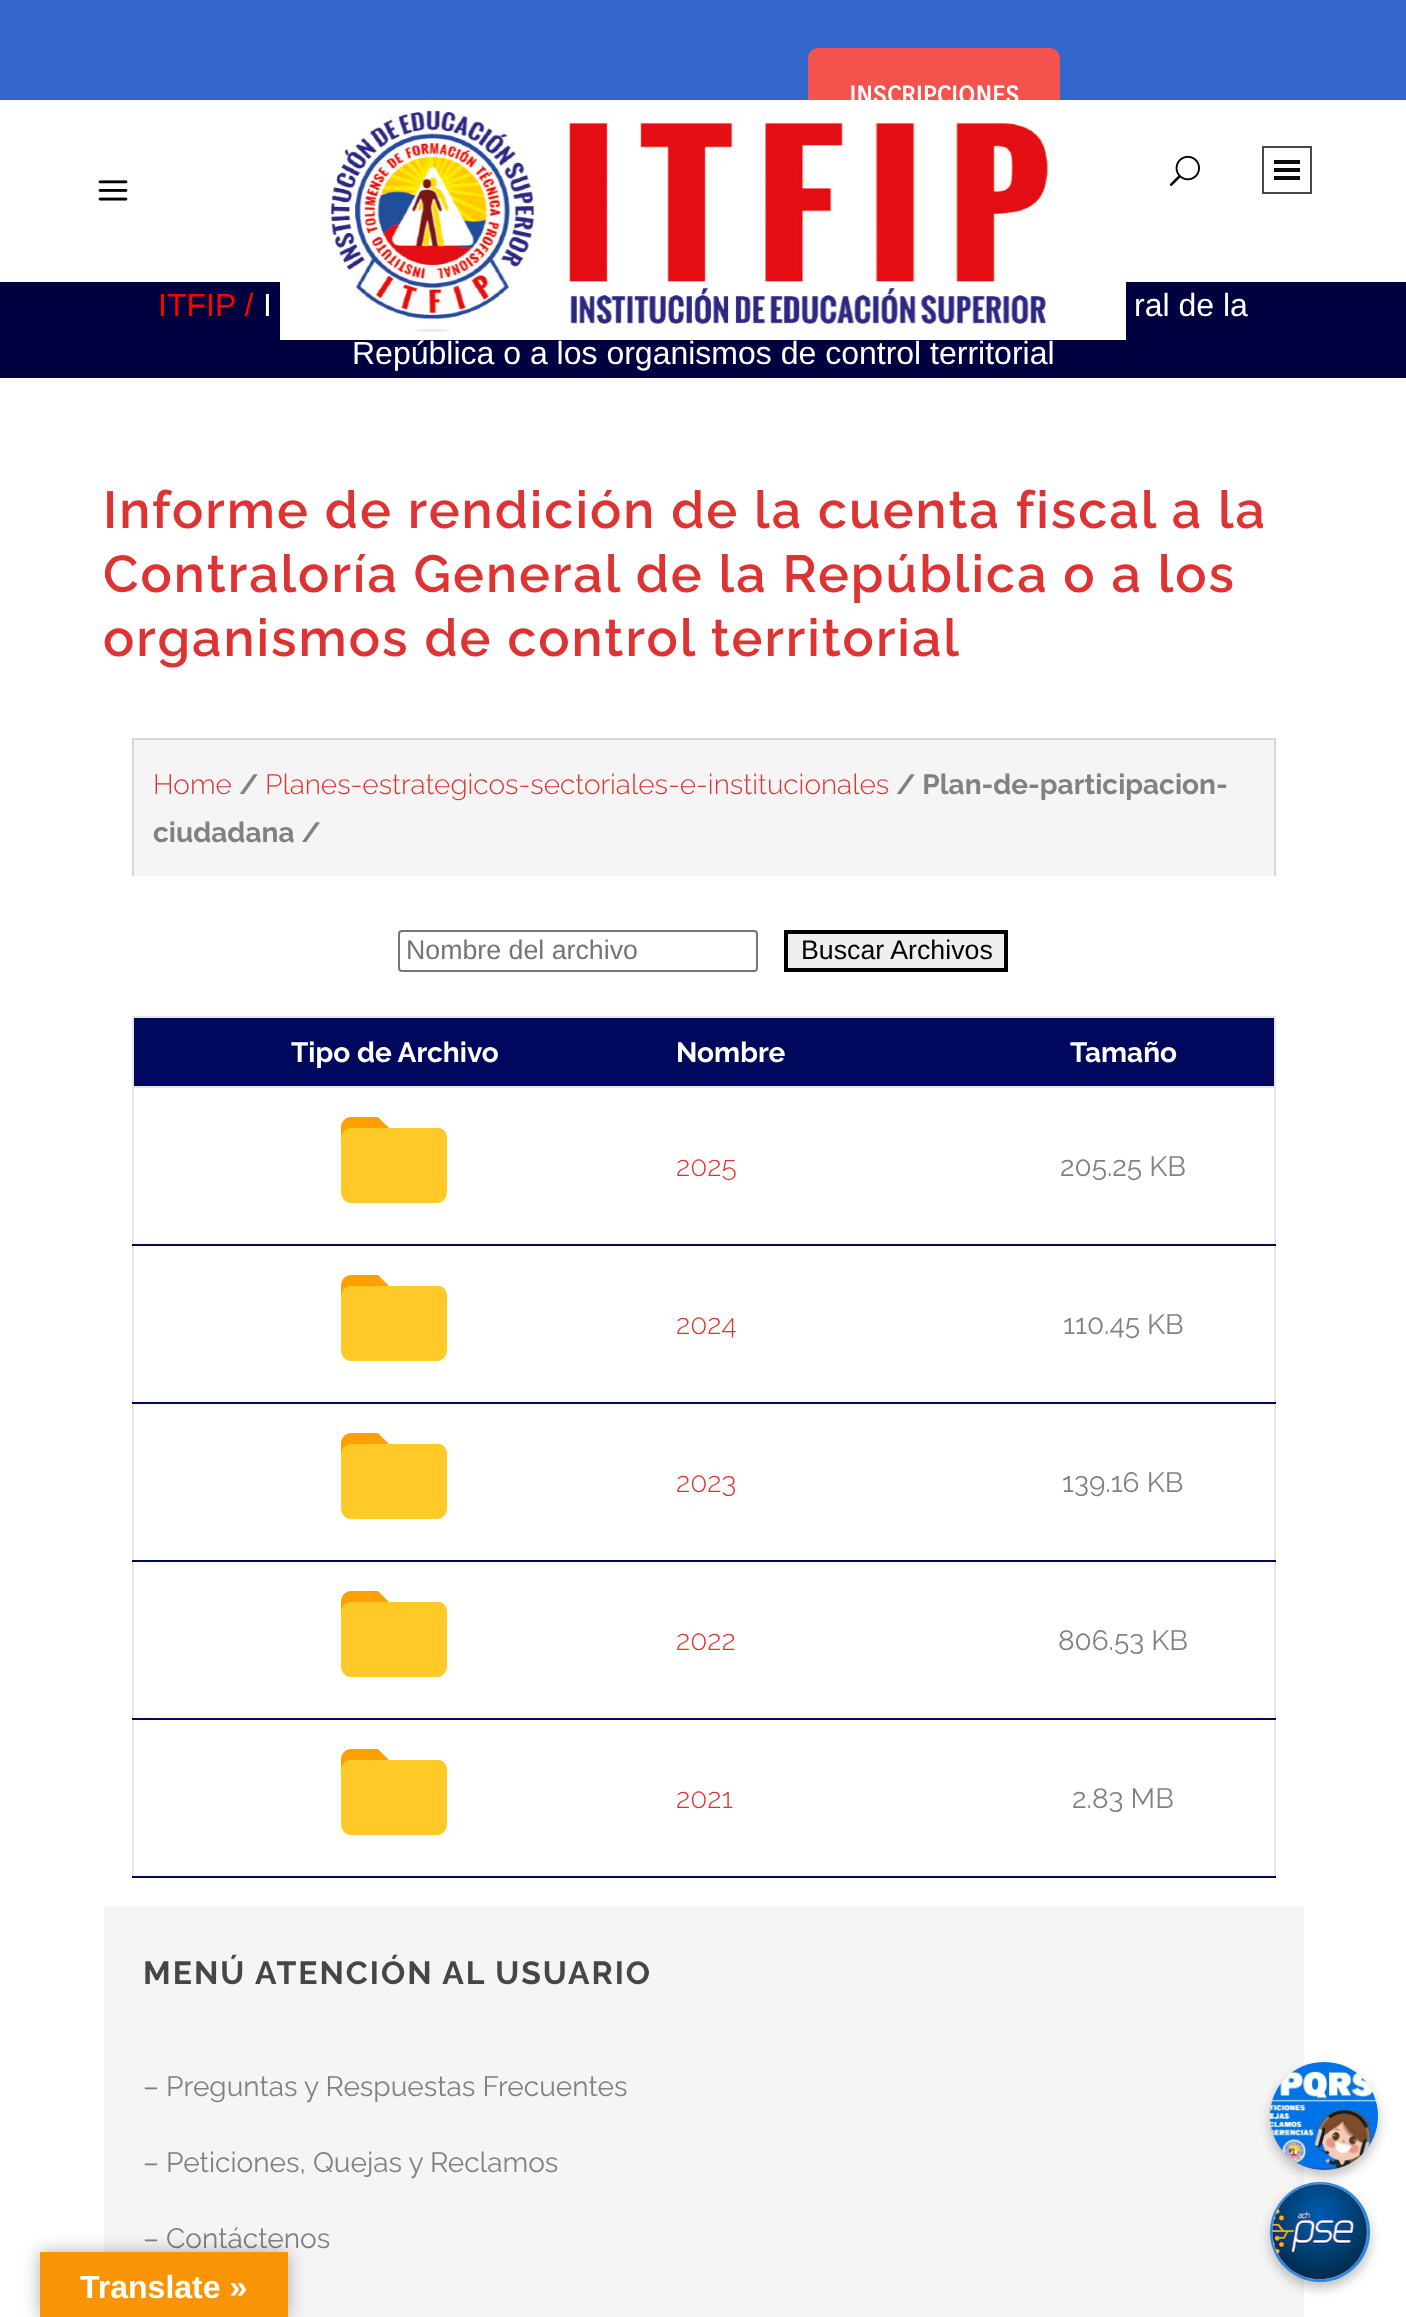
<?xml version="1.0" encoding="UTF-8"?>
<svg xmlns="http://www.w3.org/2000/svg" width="1406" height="2317">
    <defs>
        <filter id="blur1" x="-50%" y="-200%" width="200%" height="500%"><feGaussianBlur stdDeviation="9"/></filter>
        <filter id="blur2" x="-50%" y="-200%" width="200%" height="500%"><feGaussianBlur stdDeviation="6"/></filter>
    </defs>
    <rect width="100%" height="100%" fill="#FFFFFF"/>
    <rect x="0" y="0" width="1406" height="100" fill="#3366CC"/>
    <rect x="808" y="48" width="252" height="90" rx="10" fill="#F4524D"/>
    <text x="849" y="103" font-family="Orienta" font-size="24" font-weight="700" fill="#FFFFFF">INSCRIPCIONES</text>
    <rect x="808" y="100" width="252" height="38" fill="#FFFFFF"/>
    <image x="98" y="180" width="30" height="21" href="img_01.png"/>
    <rect x="0" y="282" width="1406" height="96" fill="#000040"/>
    <image x="280" y="107" width="846" height="233" href="img_02.png"/>
    <image x="1169" y="155" width="31" height="31" href="img_03.png"/>
    <rect x="1263" y="147" width="48" height="46" fill="none" stroke="#464646" stroke-width="2"/>
    <rect x="1274" y="168" width="26" height="4" fill="#0C0C0C"/>
    <rect x="1274" y="160" width="26" height="4" fill="#0C0C0C"/>
    <rect x="1274" y="176" width="26" height="4" fill="#0C0C0C"/>
    <text x="158" y="316" font-family="Liberation Sans" font-size="32" fill="#FF0000">ITFIP /</text>
    <text x="263" y="316" font-family="Liberation Sans" font-size="32" fill="#FFFFFF">I</text>
    <text x="1134" y="316" font-family="Liberation Sans" font-size="32" fill="#FFFFFF">ral de la</text>
    <text x="352" y="364" font-family="Liberation Sans" font-size="32" fill="#FFFFFF">República o a los organismos de control territorial</text>
    <text font-family="Raleway" font-size="52" font-weight="600" letter-spacing="2" fill="#DD3333">
        <tspan x="103" y="528">Informe de rendición de la cuenta fiscal a la</tspan>
        <tspan x="103" y="592">Contraloría General de la República o a los</tspan>
        <tspan x="103" y="656">organismos de control territorial</tspan>
    </text>
    <rect x="134" y="740" width="1140" height="136" fill="#F5F5F5"/>
    <rect x="132" y="738" width="1144" height="2" fill="#D6D6D6"/>
    <rect x="1274" y="738" width="2" height="138" fill="#D6D6D6"/>
    <rect x="132" y="738" width="2" height="138" fill="#D6D6D6"/>
    <text x="153" y="794" font-family="Raleway" font-size="28" font-weight="300" fill="#DD3333">Home</text>
    <text x="239" y="794" font-family="Raleway" font-size="28" font-weight="700" fill="#818181">/</text>
    <text x="265" y="794" font-family="Raleway" font-size="28" font-weight="300" fill="#DD3333">Planes-estrategicos-sectoriales-e-institucionales</text>
    <text x="896" y="794" font-family="Raleway" font-size="28" font-weight="700" fill="#818181">/ Plan-de-participacion-</text>
    <text x="153" y="842" font-family="Raleway" font-size="28" font-weight="700" fill="#818181">ciudadana /</text>
    <rect x="399" y="931" width="358" height="40" rx="3" fill="none" stroke="#767676" stroke-width="2"/>
    <text x="406" y="959" font-family="Liberation Sans" font-size="26.75" fill="#757575">Nombre del archivo</text>
    <rect x="786" y="932" width="220" height="38" fill="#EFEFEF" stroke="#000000" stroke-width="4"/>
    <text x="801" y="959" font-family="Liberation Sans" font-size="26.75" fill="#000000">Buscar Archivos</text>
    <rect x="132" y="1016" width="1144" height="2" fill="#E6E6E6"/>
    <rect x="132" y="1086" width="1144" height="2" fill="#E6E6E6"/>
    <rect x="1274" y="1244" width="2" height="634" fill="#E6E6E6"/>
    <rect x="1274" y="1086" width="2" height="160" fill="#E6E6E6"/>
    <rect x="1274" y="1016" width="2" height="72" fill="#E6E6E6"/>
    <rect x="132" y="1244" width="2" height="634" fill="#E6E6E6"/>
    <rect x="132" y="1086" width="2" height="160" fill="#E6E6E6"/>
    <rect x="132" y="1016" width="2" height="72" fill="#E6E6E6"/>
    <rect x="134" y="1018" width="1140" height="68" fill="#00085E"/>
    <text x="291" y="1062" font-family="Raleway" font-size="28" font-weight="700" fill="#FFFFFF">Tipo de Archivo</text>
    <text x="676" y="1062" font-family="Raleway" font-size="28" font-weight="700" fill="#FFFFFF">Nombre</text>
    <text x="1070" y="1062" font-family="Raleway" font-size="28" font-weight="700" fill="#FFFFFF">Tamaño</text>
    <path d="M 437 1128 H 389 L 378 1117 H 351 C 345 1117 341 1122 341 1128 V 1149 H 447 C 447 1141 449 1128 437 1128 Z" fill="#FFA000"/>
    <path d="M 437 1128 H 351 C 345 1128 341 1133 341 1139 V 1192 C 341 1198 345 1203 351 1203 H 437 C 443 1203 447 1198 447 1192 V 1139 C 447 1133 443 1128 437 1128 Z" fill="#FFCA28"/>
    <text x="676" y="1176" font-family="Raleway" font-size="28" font-weight="300" fill="#DD3333">2025</text>
    <rect x="132" y="1244" width="1144" height="2" fill="#00085E"/>
    <text x="1060" y="1176" font-family="Raleway" font-size="28" fill="#818181">205.25 KB</text>
    <path d="M 437 1286 H 389 L 378 1275 H 351 C 345 1275 341 1280 341 1286 V 1307 H 447 C 447 1299 449 1286 437 1286 Z" fill="#FFA000"/>
    <path d="M 437 1286 H 351 C 345 1286 341 1291 341 1297 V 1350 C 341 1356 345 1361 351 1361 H 437 C 443 1361 447 1356 447 1350 V 1297 C 447 1291 443 1286 437 1286 Z" fill="#FFCA28"/>
    <text x="676" y="1334" font-family="Raleway" font-size="28" font-weight="300" fill="#DD3333">2024</text>
    <rect x="132" y="1402" width="1144" height="2" fill="#00085E"/>
    <text x="1063" y="1334" font-family="Raleway" font-size="28" fill="#818181">110.45 KB</text>
    <path d="M 437 1444 H 389 L 378 1433 H 351 C 345 1433 341 1438 341 1444 V 1465 H 447 C 447 1457 449 1444 437 1444 Z" fill="#FFA000"/>
    <path d="M 437 1444 H 351 C 345 1444 341 1449 341 1455 V 1508 C 341 1514 345 1519 351 1519 H 437 C 443 1519 447 1514 447 1508 V 1455 C 447 1449 443 1444 437 1444 Z" fill="#FFCA28"/>
    <text x="676" y="1492" font-family="Raleway" font-size="28" font-weight="300" fill="#DD3333">2023</text>
    <rect x="132" y="1560" width="1144" height="2" fill="#00085E"/>
    <text x="1062" y="1492" font-family="Raleway" font-size="28" fill="#818181">139.16 KB</text>
    <path d="M 437 1602 H 389 L 378 1591 H 351 C 345 1591 341 1596 341 1602 V 1623 H 447 C 447 1615 449 1602 437 1602 Z" fill="#FFA000"/>
    <path d="M 437 1602 H 351 C 345 1602 341 1607 341 1613 V 1666 C 341 1672 345 1677 351 1677 H 437 C 443 1677 447 1672 447 1666 V 1613 C 447 1607 443 1602 437 1602 Z" fill="#FFCA28"/>
    <text x="676" y="1650" font-family="Raleway" font-size="28" font-weight="300" fill="#DD3333">2022</text>
    <rect x="132" y="1718" width="1144" height="2" fill="#00085E"/>
    <text x="1058" y="1650" font-family="Raleway" font-size="28" fill="#818181">806.53 KB</text>
    <path d="M 437 1760 H 389 L 378 1749 H 351 C 345 1749 341 1754 341 1760 V 1781 H 447 C 447 1773 449 1760 437 1760 Z" fill="#FFA000"/>
    <path d="M 437 1760 H 351 C 345 1760 341 1765 341 1771 V 1824 C 341 1830 345 1835 351 1835 H 437 C 443 1835 447 1830 447 1824 V 1771 C 447 1765 443 1760 437 1760 Z" fill="#FFCA28"/>
    <text x="676" y="1808" font-family="Raleway" font-size="28" font-weight="300" fill="#DD3333">2021</text>
    <rect x="132" y="1876" width="1144" height="2" fill="#00085E"/>
    <text x="1072" y="1808" font-family="Raleway" font-size="28" fill="#818181">2.83 MB</text>
    <rect x="104" y="1906" width="1200" height="411" fill="#F5F5F5"/>
    <text x="143" y="1984" font-family="Raleway" font-size="32" font-weight="700" letter-spacing="2" fill="#464646">MENÚ ATENCIÓN AL USUARIO</text>
    <text x="143" y="2096" font-family="Raleway" font-size="28" fill="#818181">– Preguntas y Respuestas Frecuentes</text>
    <text x="143" y="2172" font-family="Raleway" font-size="28" fill="#818181">– Peticiones, Quejas y Reclamos</text>
    <text x="143" y="2248" font-family="Raleway" font-size="28" fill="#818181">– Contáctenos</text>
    <rect x="40" y="2252" width="248" height="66" fill="#000000" fill-opacity="0.3" filter="url(#blur1)"/>
    <rect x="40" y="2252" width="248" height="65" fill="#F89406"/>
    <text x="80" y="2298" font-family="Liberation Sans" font-size="32" font-weight="700" fill="#FFFFFF">Translate »</text>
    <rect x="1270" y="2188" width="100" height="100" rx="50" fill="#000000" fill-opacity="0.25" filter="url(#blur2)"/>
    <circle cx="1320" cy="2232" r="50" fill="#1E88E5"/>
    <image x="1271" y="2183" width="97" height="97" href="img_05.png"/>
    <rect x="1270" y="2068" width="108" height="108" rx="54" fill="#000000" fill-opacity="0.25" filter="url(#blur2)"/>
    <image x="1270" y="2062" width="108" height="108" href="img_04.png"/>
</svg>
